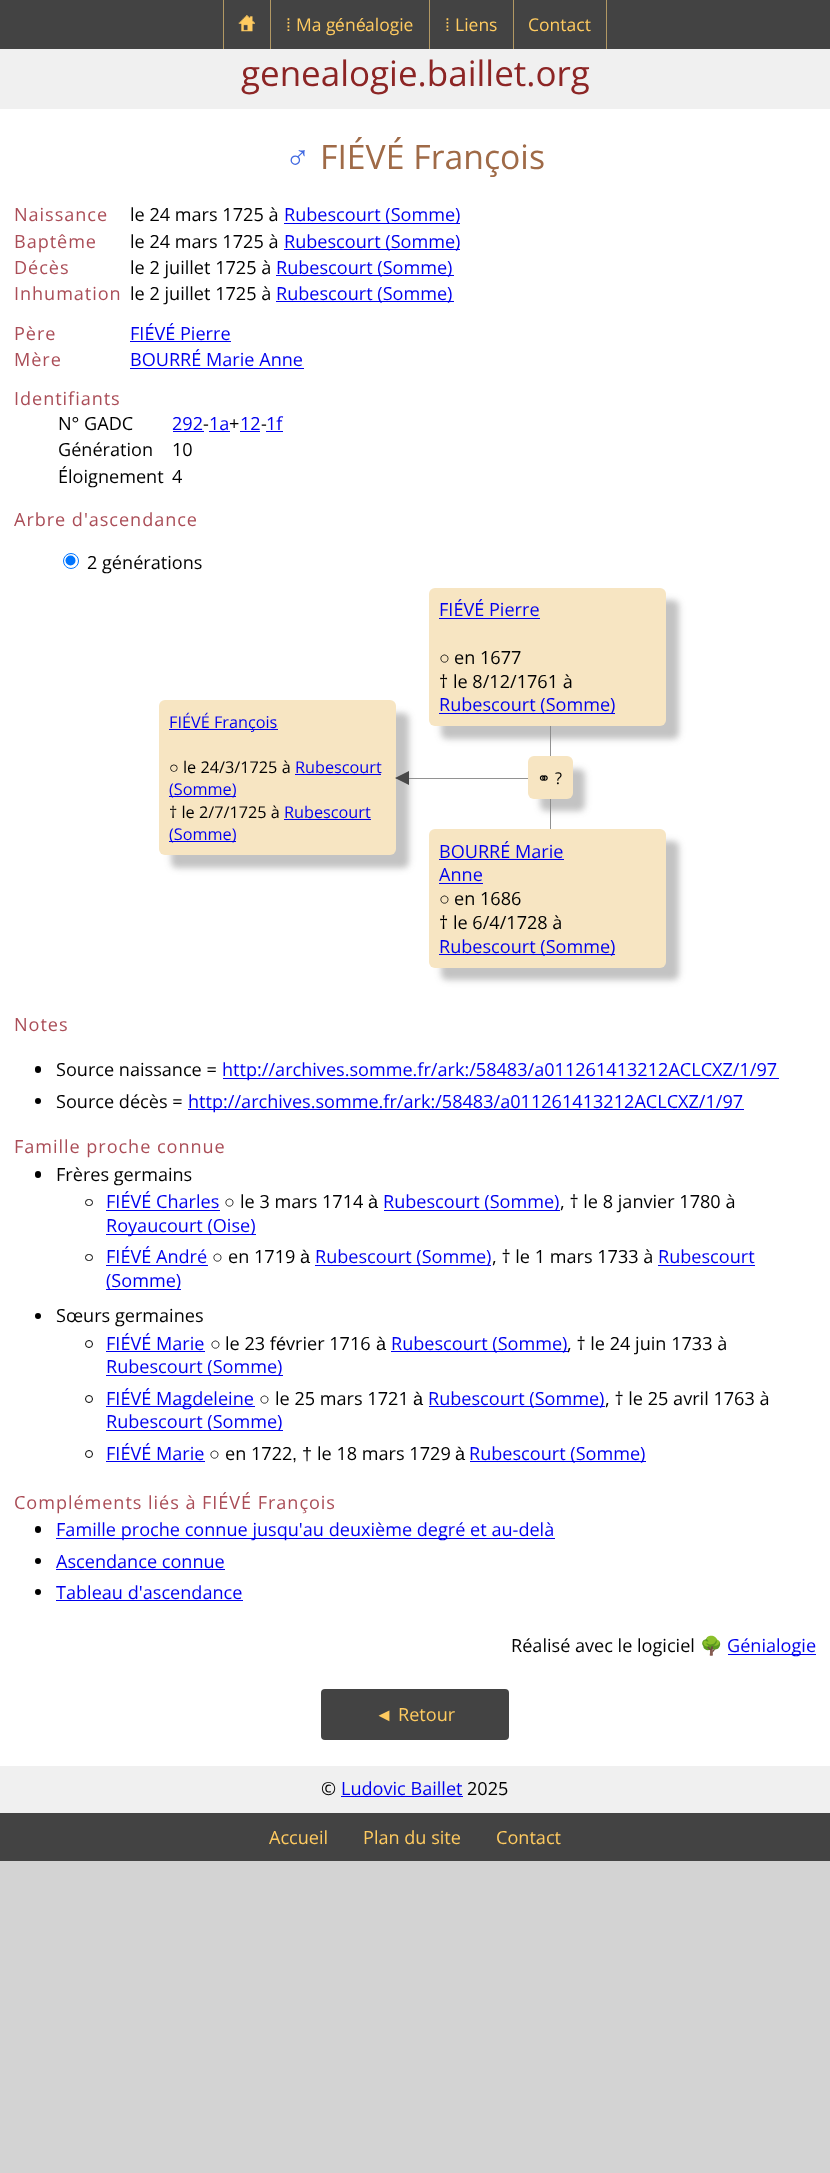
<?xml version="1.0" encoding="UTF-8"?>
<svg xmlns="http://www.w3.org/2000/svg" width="830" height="2173">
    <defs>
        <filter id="blur1" x="-50%" y="-200%" width="200%" height="500%"><feGaussianBlur stdDeviation="3"/></filter>
    </defs>
    <rect width="100%" height="100%" fill="#D3D3D3"/>
    <rect x="0" y="0" width="830" height="49" fill="#434343"/>
    <rect x="223" y="0" width="1" height="49" fill="#B29863"/>
    <image x="238" y="15" width="17" height="17" href="img_01.png"/>
    <rect x="270" y="0" width="1" height="49" fill="#B29863"/>
    <text x="286" y="31" font-family="Liberation Sans" font-size="17.5" fill="#FFCB60">⁞</text>
    <text x="296" y="31" font-family="Open Sans" font-size="17.5" fill="#FFCB60">Ma g</text>
    <text x="335" y="31" font-family="Liberation Sans" font-size="17.5" fill="#FFCB60">é</text>
    <text x="345" y="31" font-family="Open Sans" font-size="17.5" fill="#FFCB60">n</text>
    <text x="356" y="31" font-family="Liberation Sans" font-size="17.5" fill="#FFCB60">é</text>
    <text x="365" y="31" font-family="Open Sans" font-size="17.5" fill="#FFCB60">alogie</text>
    <rect x="429" y="0" width="1" height="49" fill="#B29863"/>
    <text x="445" y="31" font-family="Liberation Sans" font-size="17.5" fill="#FFCB60">⁞</text>
    <text x="455" y="31" font-family="Open Sans" font-size="17.5" fill="#FFCB60">Liens</text>
    <rect x="606" y="0" width="1" height="49" fill="#B29863"/>
    <rect x="513" y="0" width="1" height="49" fill="#B29863"/>
    <text x="528" y="31" font-family="Open Sans" font-size="17.5" fill="#FFCB60">Contact</text>
    <rect x="0" y="49" width="830" height="60" fill="#F0F0F0"/>
    <text x="241" y="86" font-family="Open Sans" font-size="35" fill="#8C2525">genealogie.baillet.org</text>
    <rect x="0" y="109" width="830" height="1657" fill="#FFFFFF"/>
    <text x="285" y="169" font-family="Liberation Sans" font-size="33.75" fill="#4169E1">♂</text>
    <text x="320" y="169" font-family="Open Sans" font-size="33.75" fill="#9F6A47">FIÉVÉ François</text>
    <text x="14" y="221" font-family="Open Sans" font-size="18.1" letter-spacing="0.95" fill="#AA4D57">Naissance</text>
    <text x="130" y="221" font-family="Open Sans" font-size="18.1" fill="#000000">le 24 mars 1725 à</text>
    <rect x="284" y="223" width="176" height="1" fill="#0000EE"/>
    <text x="284" y="221" font-family="Open Sans" font-size="18.1" fill="#0000EE">Rubescourt (Somme)</text>
    <text x="14" y="248" font-family="Open Sans" font-size="18.1" letter-spacing="0.95" fill="#AA4D57">Baptême</text>
    <text x="130" y="248" font-family="Open Sans" font-size="18.1" fill="#000000">le 24 mars 1725 à</text>
    <rect x="284" y="249" width="176" height="1" fill="#0000EE"/>
    <text x="284" y="248" font-family="Open Sans" font-size="18.1" fill="#0000EE">Rubescourt (Somme)</text>
    <text x="14" y="274" font-family="Open Sans" font-size="18.1" letter-spacing="0.95" fill="#AA4D57">Décès</text>
    <text x="130" y="274" font-family="Open Sans" font-size="18.1" fill="#000000">le 2 juillet 1725 à</text>
    <rect x="276" y="275" width="178" height="1" fill="#0000EE"/>
    <text x="276" y="274" font-family="Open Sans" font-size="18.1" fill="#0000EE">Rubescourt (Somme)</text>
    <text x="14" y="300" font-family="Open Sans" font-size="18.1" letter-spacing="0.95" fill="#AA4D57">Inhumation</text>
    <text x="130" y="300" font-family="Open Sans" font-size="18.1" fill="#000000">le 2 juillet 1725 à</text>
    <rect x="276" y="301" width="178" height="1" fill="#0000EE"/>
    <text x="276" y="300" font-family="Open Sans" font-size="18.1" fill="#0000EE">Rubescourt (Somme)</text>
    <text x="14" y="340" font-family="Open Sans" font-size="18.1" letter-spacing="0.95" fill="#AA4D57">Père</text>
    <text x="130" y="340" font-family="Open Sans" font-size="18.1" fill="#0000EE">FIÉVÉ Pierre</text>
    <rect x="130" y="341" width="101" height="1" fill="#0000EE"/>
    <text x="14" y="366" font-family="Open Sans" font-size="18.1" letter-spacing="0.95" fill="#AA4D57">Mère</text>
    <text x="130" y="366" font-family="Open Sans" font-size="18.1" fill="#0000EE">BOURRÉ Marie Anne</text>
    <rect x="130" y="368" width="174" height="1" fill="#0000EE"/>
    <text x="14" y="405" font-family="Open Sans" font-size="18.1" letter-spacing="0.95" fill="#AA4D57">Identifiants</text>
    <text x="58" y="430" font-family="Open Sans" font-size="18.1" fill="#000000">N° GADC</text>
    <text x="172" y="430" font-family="Open Sans" font-size="18.1" fill="#0000EE">292</text>
    <rect x="173" y="431" width="31" height="1" fill="#0000EE"/>
    <text x="203" y="430" font-family="Open Sans" font-size="18.1" fill="#000000">-</text>
    <text x="209" y="430" font-family="Open Sans" font-size="18.1" fill="#0000EE">1a</text>
    <rect x="209" y="431" width="21" height="1" fill="#0000EE"/>
    <text x="229" y="430" font-family="Open Sans" font-size="18.1" fill="#000000">+</text>
    <text x="240" y="430" font-family="Open Sans" font-size="18.1" fill="#0000EE">12</text>
    <rect x="240" y="431" width="20" height="1" fill="#0000EE"/>
    <text x="261" y="430" font-family="Open Sans" font-size="18.1" fill="#000000">-</text>
    <text x="266" y="430" font-family="Open Sans" font-size="18.1" fill="#0000EE">1f</text>
    <rect x="266" y="431" width="17" height="1" fill="#0000EE"/>
    <text x="58" y="456" font-family="Open Sans" font-size="18.1" fill="#000000">Génération</text>
    <text x="172" y="456" font-family="Open Sans" font-size="18.1" fill="#000000">10</text>
    <text x="58" y="483" font-family="Open Sans" font-size="18.1" fill="#000000">Éloignement</text>
    <text x="172" y="483" font-family="Open Sans" font-size="18.1" fill="#000000">4</text>
    <text x="14" y="526" font-family="Open Sans" font-size="18.1" letter-spacing="0.95" fill="#AA4D57">Arbre d'ascendance</text>
    <circle cx="71" cy="561" r="7.5" fill="none" stroke="#0075FF"/>
    <circle cx="70.5" cy="560.5" r="5" fill="#0075FF"/>
    <text x="87" y="569" font-family="Open Sans" font-size="18.1" fill="#000000">2 générations</text>
    <path d="M 280 778 H 551 L 550 779 H 280 Z" fill="#929292"/>
    <rect x="171" y="713" width="238" height="155" rx="6" fill="#888888" fill-opacity="0.5" filter="url(#blur1)"/>
    <rect x="159" y="700" width="237" height="155" rx="6" fill="#F7E5C2"/>
    <rect x="169" y="729" width="109" height="1" fill="#0000EE"/>
    <text x="169" y="728" font-family="Open Sans" font-size="16.25" fill="#0000EE">FIÉVÉ François</text>
    <text x="169" y="773" font-family="Liberation Sans" font-size="16.25" fill="#000000">○</text>
    <text x="183" y="773" font-family="Open Sans" font-size="16.25" fill="#000000">le 24/3/1725 à</text>
    <text x="295" y="773" font-family="Open Sans" font-size="16.25" fill="#0000EE">Rubescourt</text>
    <rect x="295" y="774" width="86" height="1" fill="#0000EE"/>
    <rect x="169" y="796" width="67" height="1" fill="#0000EE"/>
    <text x="169" y="795" font-family="Open Sans" font-size="16.25" fill="#0000EE">(Somme)</text>
    <text x="169" y="818" font-family="Open Sans" font-size="16.25" fill="#000000">† le 2/7/1725 à</text>
    <text x="284" y="818" font-family="Open Sans" font-size="16.25" fill="#0000EE">Rubescourt</text>
    <rect x="284" y="819" width="87" height="1" fill="#0000EE"/>
    <rect x="169" y="841" width="67" height="1" fill="#0000EE"/>
    <text x="169" y="840" font-family="Open Sans" font-size="16.25" fill="#0000EE">(Somme)</text>
    <rect x="550" y="726" width="1" height="30" fill="#929292"/>
    <rect x="441" y="600" width="238" height="139" rx="6" fill="#888888" fill-opacity="0.5" filter="url(#blur1)"/>
    <rect x="429" y="588" width="237" height="138" rx="6" fill="#F7E5C2"/>
    <text x="439" y="616" font-family="Open Sans" font-size="18.1" fill="#0000EE">FIÉVÉ Pierre</text>
    <rect x="439" y="618" width="101" height="1" fill="#0000EE"/>
    <text x="439" y="664" font-family="Liberation Sans" font-size="18.1" fill="#000000">○</text>
    <text x="454" y="664" font-family="Open Sans" font-size="18.1" fill="#000000">en 1677</text>
    <text x="439" y="688" font-family="Open Sans" font-size="18.1" fill="#000000">† le 8/12/1761 à</text>
    <rect x="439" y="713" width="176" height="1" fill="#0000EE"/>
    <text x="439" y="711" font-family="Open Sans" font-size="18.1" fill="#0000EE">Rubescourt (Somme)</text>
    <path d="M 551 778 V 888 H 550 V 779 Z" fill="#242424" fill-opacity="0.5"/>
    <rect x="540" y="769" width="45" height="42" rx="6" fill="#888888" fill-opacity="0.5" filter="url(#blur1)"/>
    <rect x="528" y="756" width="45" height="43" rx="6" fill="#F7E5C2"/>
    <text x="537" y="784" font-family="DejaVu Sans" font-size="16.25" fill="#000000">⚭</text>
    <text x="555" y="784" font-family="Open Sans" font-size="16.25" fill="#000000">?</text>
    <path d="M 395 778 L 409 771 V 785 Z" fill="#484848"/>
    <rect x="441" y="841" width="238" height="139" rx="6" fill="#888888" fill-opacity="0.5" filter="url(#blur1)"/>
    <rect x="429" y="829" width="237" height="139" rx="6" fill="#F7E5C2"/>
    <text x="439" y="858" font-family="Open Sans" font-size="18.1" fill="#0000EE">BOURRÉ Marie</text>
    <rect x="439" y="859" width="125" height="1" fill="#0000EE"/>
    <text x="439" y="881" font-family="Open Sans" font-size="18.1" fill="#0000EE">Anne</text>
    <rect x="439" y="883" width="44" height="1" fill="#0000EE"/>
    <text x="439" y="905" font-family="Liberation Sans" font-size="18.1" fill="#000000">○</text>
    <text x="454" y="905" font-family="Open Sans" font-size="18.1" fill="#000000">en 1686</text>
    <text x="439" y="929" font-family="Open Sans" font-size="18.1" fill="#000000">† le 6/4/1728 à</text>
    <rect x="439" y="954" width="176" height="1" fill="#0000EE"/>
    <text x="439" y="953" font-family="Open Sans" font-size="18.1" fill="#0000EE">Rubescourt (Somme)</text>
    <text x="14" y="1031" font-family="Open Sans" font-size="18.1" letter-spacing="0.95" fill="#AA4D57">Notes</text>
    <rect x="35" y="1066" width="6" height="7" rx="3" fill="#000000"/>
    <text x="56" y="1076" font-family="Open Sans" font-size="18.1" fill="#000000">Source naissance =</text>
    <rect x="223" y="1078" width="556" height="1" fill="#0000EE"/>
    <text x="222" y="1076" font-family="Open Sans" font-size="18.1" fill="#0000EE">http://archives.somme.fr/ark:/58483/a011261413212ACLCXZ/1/97</text>
    <circle cx="38" cy="1101" r="3" fill="#000000"/>
    <text x="56" y="1108" font-family="Open Sans" font-size="18.1" fill="#000000">Source décès =</text>
    <rect x="188" y="1109" width="556" height="1" fill="#0000EE"/>
    <text x="188" y="1108" font-family="Open Sans" font-size="18.1" fill="#0000EE">http://archives.somme.fr/ark:/58483/a011261413212ACLCXZ/1/97</text>
    <text x="14" y="1153" font-family="Open Sans" font-size="18.1" letter-spacing="0.95" fill="#AA4D57">Famille proche connue</text>
    <rect x="35" y="1171" width="6" height="7" rx="3" fill="#000000"/>
    <text x="56" y="1181" font-family="Open Sans" font-size="18.1" fill="#000000">Frères germains</text>
    <rect x="85.5" y="1199.5" width="7" height="6" rx="3" fill="none" stroke="#000000"/>
    <text x="106" y="1208" font-family="Open Sans" font-size="18.1" fill="#0000EE">FIÉVÉ Charles</text>
    <rect x="106" y="1210" width="114" height="1" fill="#0000EE"/>
    <text x="224" y="1208" font-family="Liberation Sans" font-size="18.1" fill="#000000">○</text>
    <text x="240" y="1208" font-family="Open Sans" font-size="18.1" fill="#000000">le 3 mars 1714</text>
    <text x="368" y="1208" font-family="Liberation Sans" font-size="18.1" fill="#000000">à</text>
    <rect x="384" y="1210" width="176" height="1" fill="#0000EE"/>
    <text x="383" y="1208" font-family="Open Sans" font-size="18.1" fill="#0000EE">Rubescourt (Somme)</text>
    <text x="560" y="1208" font-family="Open Sans" font-size="18.1" fill="#000000">, † le 8 janvier 1780 à</text>
    <rect x="106" y="1234" width="150" height="1" fill="#0000EE"/>
    <text x="106" y="1232" font-family="Open Sans" font-size="18.1" fill="#0000EE">Royaucourt (Oise)</text>
    <rect x="85.5" y="1254.5" width="7" height="6" rx="3" fill="none" stroke="#000000"/>
    <text x="106" y="1263" font-family="Open Sans" font-size="18.1" fill="#0000EE">FIÉVÉ André</text>
    <rect x="106" y="1265" width="102" height="1" fill="#0000EE"/>
    <text x="212" y="1263" font-family="Liberation Sans" font-size="18.1" fill="#000000">○</text>
    <text x="228" y="1263" font-family="Open Sans" font-size="18.1" fill="#000000">en 1719</text>
    <text x="300" y="1263" font-family="Liberation Sans" font-size="18.1" fill="#000000">à</text>
    <rect x="315" y="1265" width="176" height="1" fill="#0000EE"/>
    <text x="315" y="1263" font-family="Open Sans" font-size="18.1" fill="#0000EE">Rubescourt (Somme)</text>
    <text x="492" y="1263" font-family="Open Sans" font-size="18.1" fill="#000000">, † le 1 mars 1733 à</text>
    <text x="658" y="1263" font-family="Open Sans" font-size="18.1" fill="#0000EE">Rubescourt</text>
    <rect x="658" y="1265" width="97" height="1" fill="#0000EE"/>
    <rect x="106" y="1289" width="75" height="1" fill="#0000EE"/>
    <text x="106" y="1287" font-family="Open Sans" font-size="18.1" fill="#0000EE">(Somme)</text>
    <circle cx="38" cy="1316" r="3" fill="#000000"/>
    <text x="56" y="1322" font-family="Open Sans" font-size="18.1" fill="#000000">Sœurs germaines</text>
    <circle cx="89" cy="1344" r="3.5" fill="none" stroke="#000000"/>
    <text x="106" y="1350" font-family="Open Sans" font-size="18.1" fill="#0000EE">FIÉVÉ Marie</text>
    <rect x="106" y="1351" width="99" height="1" fill="#0000EE"/>
    <text x="210" y="1350" font-family="Liberation Sans" font-size="18.1" fill="#000000">○</text>
    <text x="225" y="1350" font-family="Open Sans" font-size="18.1" fill="#000000">le 23 f</text>
    <text x="276" y="1350" font-family="Liberation Sans" font-size="18.1" fill="#000000">é</text>
    <text x="286" y="1350" font-family="Open Sans" font-size="18.1" fill="#000000">vrier 1716</text>
    <text x="376" y="1350" font-family="Liberation Sans" font-size="18.1" fill="#000000">à</text>
    <rect x="391" y="1351" width="177" height="1" fill="#0000EE"/>
    <text x="391" y="1350" font-family="Open Sans" font-size="18.1" fill="#0000EE">Rubescourt (Somme)</text>
    <text x="567" y="1350" font-family="Open Sans" font-size="18.1" fill="#000000">, † le 24 juin 1733 à</text>
    <rect x="106" y="1375" width="177" height="1" fill="#0000EE"/>
    <text x="106" y="1373" font-family="Open Sans" font-size="18.1" fill="#0000EE">Rubescourt (Somme)</text>
    <circle cx="89" cy="1399" r="3.5" fill="none" stroke="#000000"/>
    <rect x="106" y="1406" width="149" height="1" fill="#0000EE"/>
    <text x="106" y="1405" font-family="Open Sans" font-size="18.1" fill="#0000EE">FIÉVÉ Magdeleine</text>
    <text x="259" y="1405" font-family="Liberation Sans" font-size="18.1" fill="#000000">○</text>
    <text x="275" y="1405" font-family="Open Sans" font-size="18.1" fill="#000000">le 25 mars 1721</text>
    <text x="413" y="1405" font-family="Liberation Sans" font-size="18.1" fill="#000000">à</text>
    <rect x="429" y="1406" width="176" height="1" fill="#0000EE"/>
    <text x="428" y="1405" font-family="Open Sans" font-size="18.1" fill="#0000EE">Rubescourt (Somme)</text>
    <text x="605" y="1405" font-family="Open Sans" font-size="18.1" fill="#000000">, † le 25 avril 1763 à</text>
    <rect x="106" y="1430" width="177" height="1" fill="#0000EE"/>
    <text x="106" y="1428" font-family="Open Sans" font-size="18.1" fill="#0000EE">Rubescourt (Somme)</text>
    <circle cx="89" cy="1454" r="3.5" fill="none" stroke="#000000"/>
    <text x="106" y="1460" font-family="Open Sans" font-size="18.1" fill="#0000EE">FIÉVÉ Marie</text>
    <rect x="106" y="1461" width="99" height="1" fill="#0000EE"/>
    <text x="209" y="1460" font-family="Liberation Sans" font-size="18.1" fill="#000000">○</text>
    <text x="225" y="1460" font-family="Open Sans" font-size="18.1" fill="#000000">en 1722</text>
    <text x="302" y="1460" font-family="Liberation Sans" font-size="18.1" fill="#000000">†</text>
    <text x="317" y="1460" font-family="Open Sans" font-size="18.1" fill="#000000">le 18 mars 1729</text>
    <text x="455" y="1460" font-family="Liberation Sans" font-size="18.1" fill="#000000">à</text>
    <rect x="470" y="1461" width="176" height="1" fill="#0000EE"/>
    <text x="469" y="1460" font-family="Open Sans" font-size="18.1" fill="#0000EE">Rubescourt (Somme)</text>
    <text x="292" y="1460" font-family="Liberation Sans" font-size="18.1" fill="#000000">,</text>
    <text x="14" y="1509" font-family="Open Sans" font-size="18.1" letter-spacing="0.95" fill="#AA4D57">Compléments liés à FIÉVÉ François</text>
    <rect x="35" y="1526" width="6" height="7" rx="3" fill="#000000"/>
    <rect x="56" y="1538" width="499" height="1" fill="#0000EE"/>
    <text x="56" y="1536" font-family="Open Sans" font-size="18.1" fill="#0000EE">Famille proche connue jusqu'au deuxième degré et au-delà</text>
    <circle cx="38" cy="1561" r="3" fill="#000000"/>
    <text x="56" y="1568" font-family="Open Sans" font-size="18.1" fill="#0000EE">Ascendance connue</text>
    <rect x="56" y="1569" width="169" height="1" fill="#0000EE"/>
    <circle cx="38" cy="1592" r="3" fill="#000000"/>
    <text x="56" y="1599" font-family="Open Sans" font-size="18.1" fill="#0000EE">Tableau d'ascendance</text>
    <rect x="56" y="1600" width="187" height="1" fill="#0000EE"/>
    <text x="511" y="1652" font-family="Open Sans" font-size="18.1" fill="#000000">Réalisé avec le logiciel</text>
    <text x="700" y="1652" font-family="Noto Color Emoji" font-size="18.1" fill="#000000">🌳</text>
    <rect x="728" y="1654" width="88" height="1" fill="#0000EE"/>
    <text x="727" y="1652" font-family="Open Sans" font-size="18.1" fill="#0000EE">Génialogie</text>
    <rect x="321" y="1689" width="188" height="51" rx="4" fill="#434343"/>
    <text x="375" y="1721" font-family="Liberation Sans" font-size="18.1" fill="#FFCB60">◄</text>
    <text x="398" y="1721" font-family="Open Sans" font-size="18.1" fill="#FFCB60">Retour</text>
    <rect x="0" y="1766" width="830" height="47" fill="#F0F0F0"/>
    <text x="321" y="1795" font-family="Open Sans" font-size="18.1" fill="#000000">©</text>
    <text x="341" y="1795" font-family="Open Sans" font-size="18.1" fill="#0000EE">Ludovic Baillet</text>
    <rect x="341" y="1796" width="122" height="1" fill="#0000EE"/>
    <text x="467" y="1795" font-family="Open Sans" font-size="18.1" fill="#000000">2025</text>
    <rect x="0" y="1813" width="830" height="48" fill="#434343"/>
    <text x="269" y="1844" font-family="Open Sans" font-size="18.1" fill="#FFCB60">Accueil</text>
    <text x="363" y="1844" font-family="Open Sans" font-size="18.1" fill="#FFCB60">Plan du site</text>
    <text x="496" y="1844" font-family="Open Sans" font-size="18.1" fill="#FFCB60">Contact</text>
</svg>
